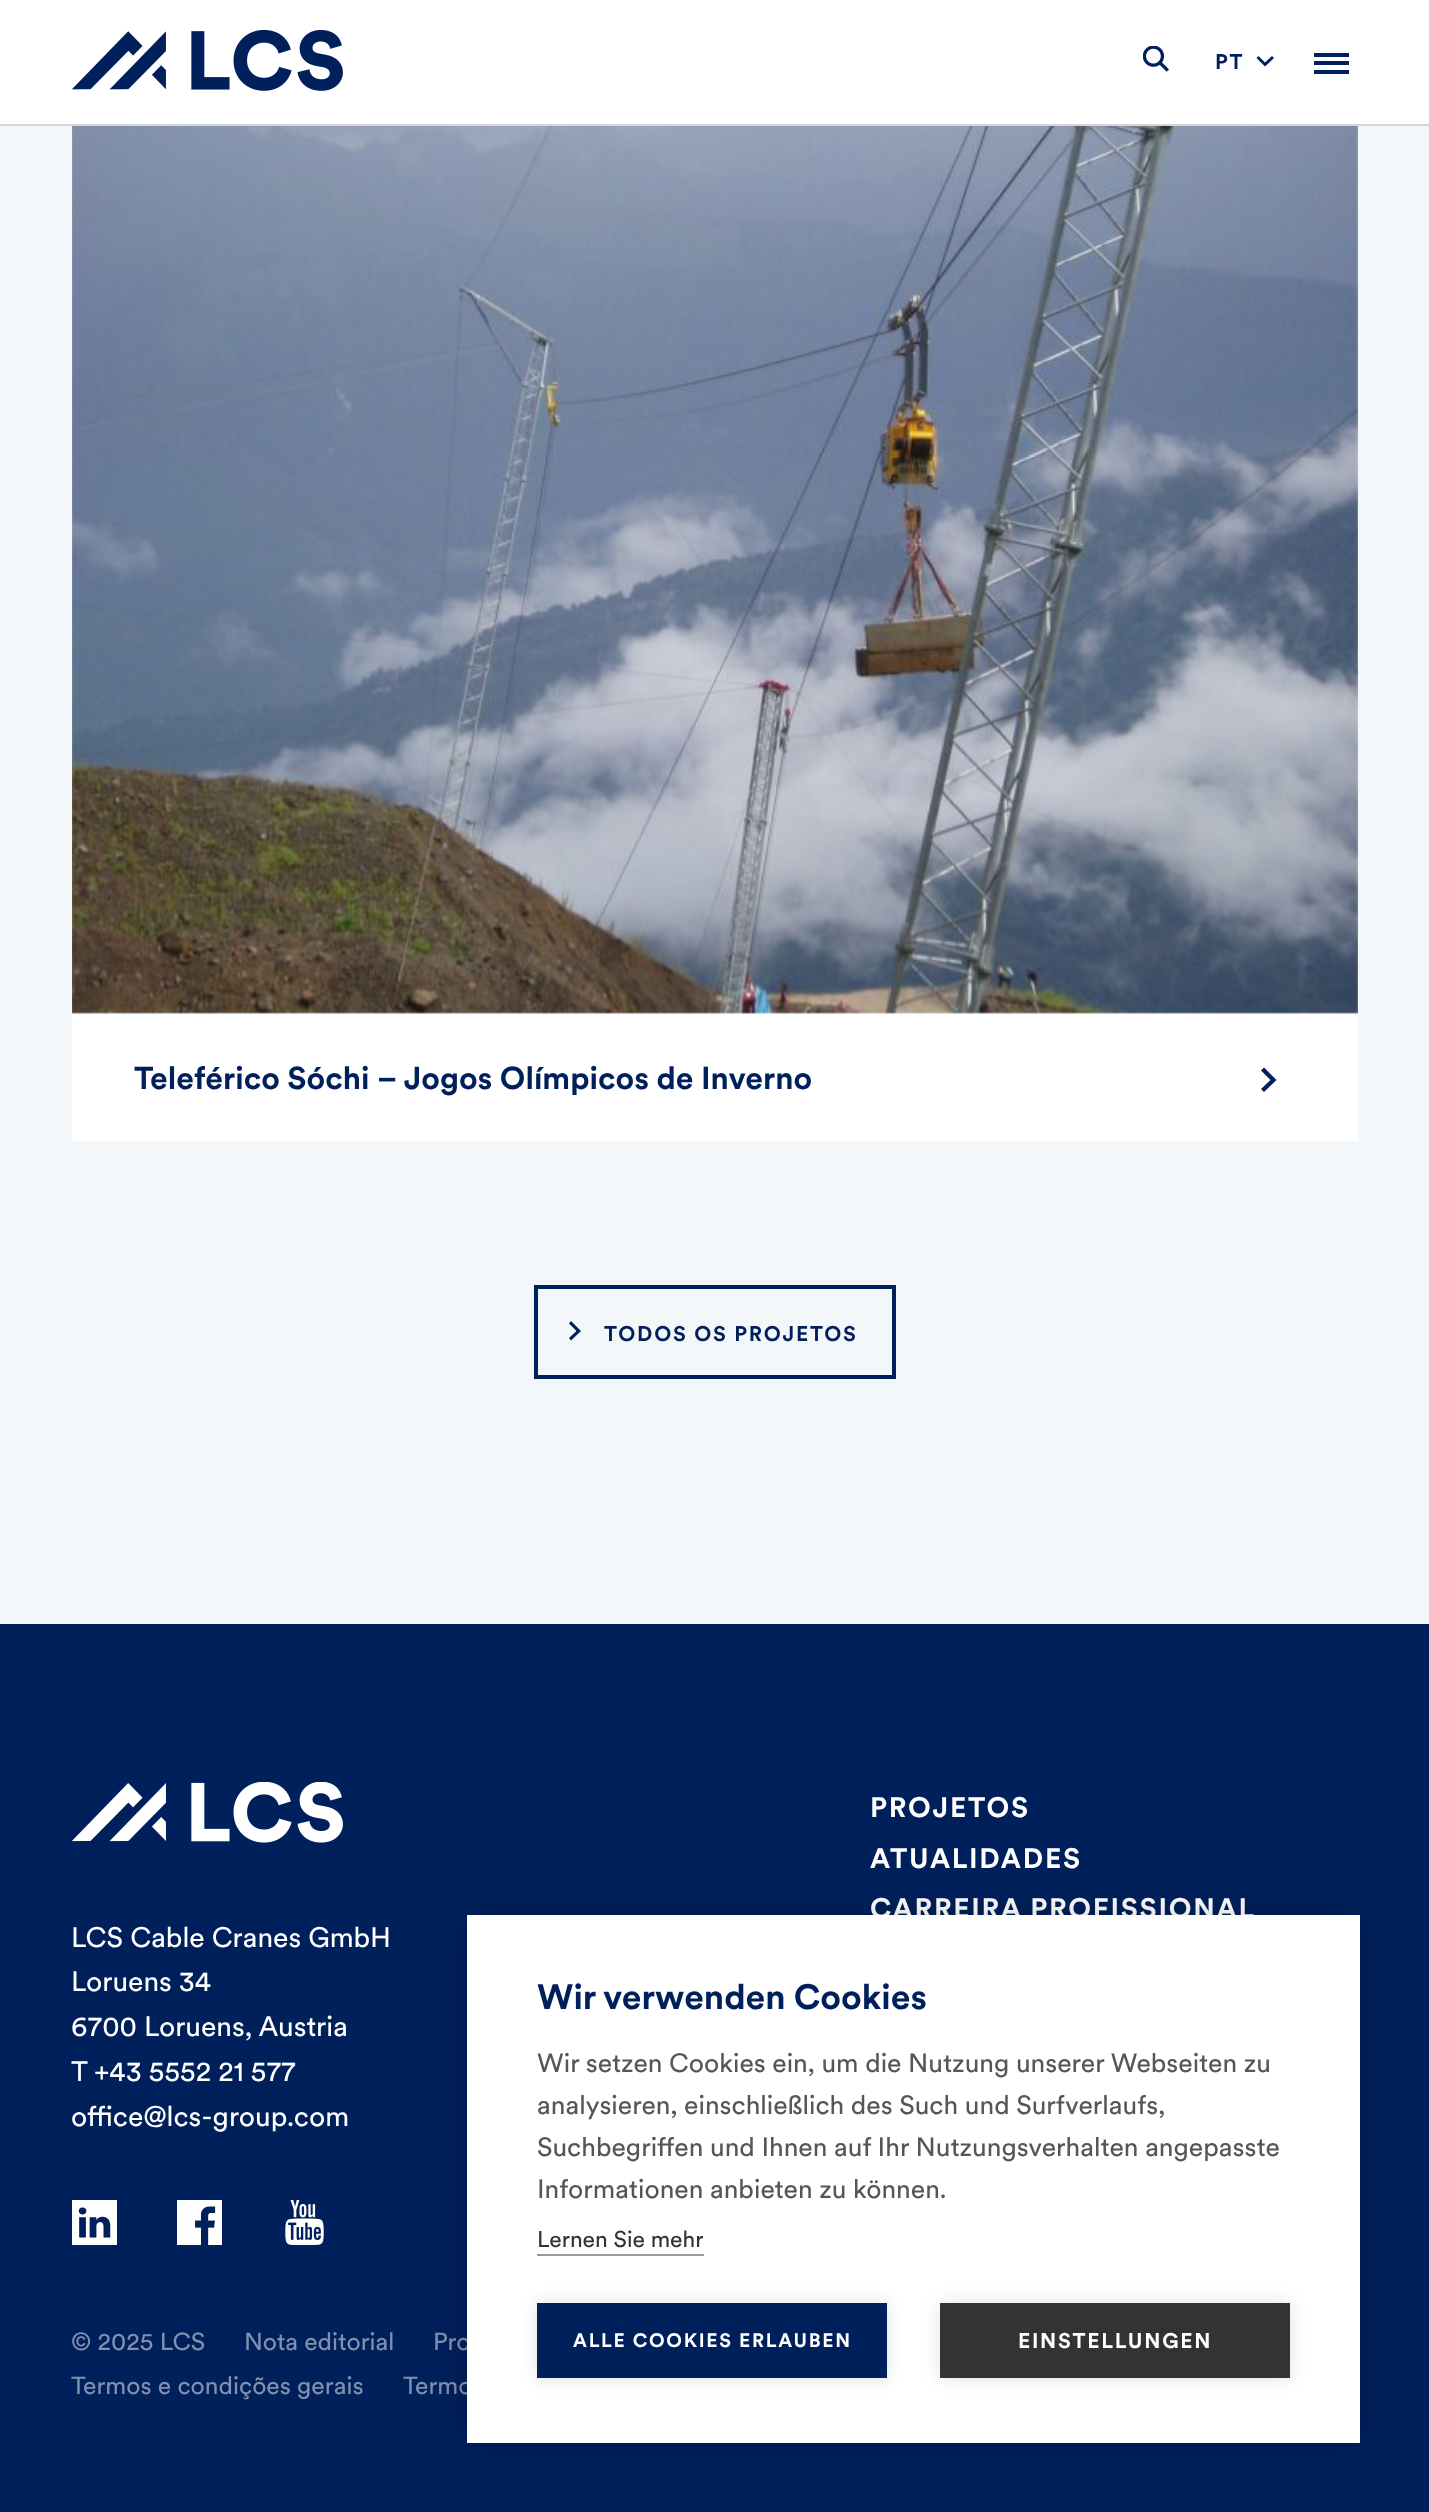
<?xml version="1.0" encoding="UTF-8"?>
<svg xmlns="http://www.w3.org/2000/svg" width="1429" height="2512">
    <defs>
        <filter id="blur1" x="-50%" y="-200%" width="200%" height="500%"><feGaussianBlur stdDeviation="17.5"/></filter>
        <filter id="blur2" x="-50%" y="-200%" width="200%" height="500%"><feGaussianBlur stdDeviation="9"/></filter>
    </defs>
    <rect width="100%" height="100%" fill="#F4F7F9"/>
    <rect x="0" y="0" width="1429" height="124" fill="#FFFFFF"/>
    <rect x="0" y="124" width="1429" height="2" fill="#D4D6D8"/>
    <image x="72" y="30" width="271" height="61" href="img_01.png"/>
    <image x="1143" y="46" width="26" height="26" href="img_02.png"/>
    <text x="1215" y="69" font-family="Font" font-size="21" font-weight="700" letter-spacing="1.75" fill="#00205B">PT</text>
    <path d="M 1272 56 L 1265 62.5 L 1258.5 56 L 1256.5 58 L 1265 66.5 L 1274 58 Z" fill="#00205B"/>
    <rect x="1314" y="53" width="35" height="4" fill="#00205B"/>
    <rect x="1314" y="61" width="35" height="4" fill="#00205B"/>
    <rect x="1314" y="70" width="35" height="4" fill="#00205B"/>
    <rect x="72" y="1013" width="1286" height="128" fill="#FFFFFF"/>
    <image x="72" y="126" width="1286" height="888" href="img_03.png"/>
    <text x="134" y="1089" font-family="Font" font-size="31.5" font-weight="700" fill="#00205B">Teleférico Sóchi – Jogos Olímpicos de Inverno</text>
    <path d="M 1264 1067.5 L 1261 1070.5 L 1270.5 1080 L 1261 1089 L 1264 1092 L 1276.5 1080 Z" fill="#00205B"/>
    <path d="M 571 1321 L 569 1323.5 L 576.5 1331 L 569 1338 L 571 1340.5 L 581 1331 Z" fill="#00205B"/>
    <rect x="536" y="1287" width="358" height="90" fill="none" stroke="#00205B" stroke-width="4"/>
    <text x="604" y="1341" font-family="Font" font-size="21" font-weight="700" letter-spacing="1.75" fill="#00205B">TODOS OS PROJETOS</text>
    <rect x="0" y="1624" width="1429" height="888" fill="#00205B"/>
    <text font-family="Font" font-size="28" font-weight="700" letter-spacing="1.75" fill="#FFFFFF">
        <tspan x="870" y="1817">PROJETOS</tspan>
        <tspan x="870" y="1868">ATUALIDADES</tspan>
        <tspan x="870" y="1918">CARREIRA PROFISSIONAL</tspan>
    </text>
    <image x="72" y="1782" width="271" height="61" href="img_04.png"/>
    <text font-family="Font" font-size="28" fill="#FFFFFF">
        <tspan x="71" y="1947">LCS Cable Cranes GmbH</tspan>
        <tspan x="71" y="1991">Loruens 34</tspan>
        <tspan x="71" y="2036">6700 Loruens, Austria</tspan>
        <tspan x="71" y="2081">T +43 5552 21 577</tspan>
        <tspan x="71" y="2126">office@lcs-group.com</tspan>
    </text>
    <image x="72" y="2200" width="45" height="45" href="img_05.png"/>
    <image x="177" y="2200" width="45" height="45" href="img_06.png"/>
    <image x="285" y="2200" width="39" height="45" href="img_07.png"/>
    <text x="71" y="2350" font-family="Font" font-size="24.5" fill="#8090AD">© 2025 LCS</text>
    <text x="244" y="2350" font-family="Font" font-size="24.5" fill="#8090AD">Nota editorial</text>
    <text x="433" y="2350" font-family="Font" font-size="24.5" fill="#8090AD">Pro</text>
    <text x="71" y="2394" font-family="Font" font-size="24.5" fill="#8090AD">Termos e condições gerais</text>
    <text x="403" y="2394" font-family="Font" font-size="24.5" fill="#8090AD">Termo</text>
    <rect x="467" y="1915" width="893" height="528" fill="#000000" fill-opacity="0.2" filter="url(#blur1)"/>
    <rect x="467" y="1915" width="893" height="528" fill="#FFFFFF"/>
    <text x="537" y="2009" font-family="Font" font-size="35" font-weight="700" fill="#00205B">Wir verwenden Cookies</text>
    <text font-family="Font" font-size="26.25" fill="#575656">
        <tspan x="537" y="2072">Wir setzen Cookies ein, um die Nutzung unserer Webseiten zu</tspan>
        <tspan x="537" y="2114">analysieren, einschließlich des Such und Surfverlaufs,</tspan>
        <tspan x="537" y="2156">Suchbegriffen und Ihnen auf Ihr Nutzungsverhalten angepasste</tspan>
        <tspan x="537" y="2198">Informationen anbieten zu können.</tspan>
    </text>
    <text x="537" y="2247" font-family="Font" font-size="22.75" fill="#333333">Lernen Sie mehr</text>
    <rect x="537" y="2254" width="167" height="2" fill="#999999"/>
    <rect x="537" y="2303" width="350" height="75" fill="#000000" fill-opacity="0.12" filter="url(#blur2)"/>
    <rect x="537" y="2303" width="350" height="75" fill="#00205B"/>
    <text x="573" y="2347" font-family="Font" font-size="19.25" font-weight="700" letter-spacing="1.75" fill="#FFFFFF">ALLE COOKIES ERLAUBEN</text>
    <rect x="940" y="2303" width="350" height="75" fill="#000000" fill-opacity="0.12" filter="url(#blur2)"/>
    <rect x="940" y="2303" width="350" height="75" fill="#333333"/>
    <text x="1018" y="2348" font-family="Font" font-size="21" font-weight="700" letter-spacing="1.75" fill="#FFFFFF">EINSTELLUNGEN</text>
</svg>
